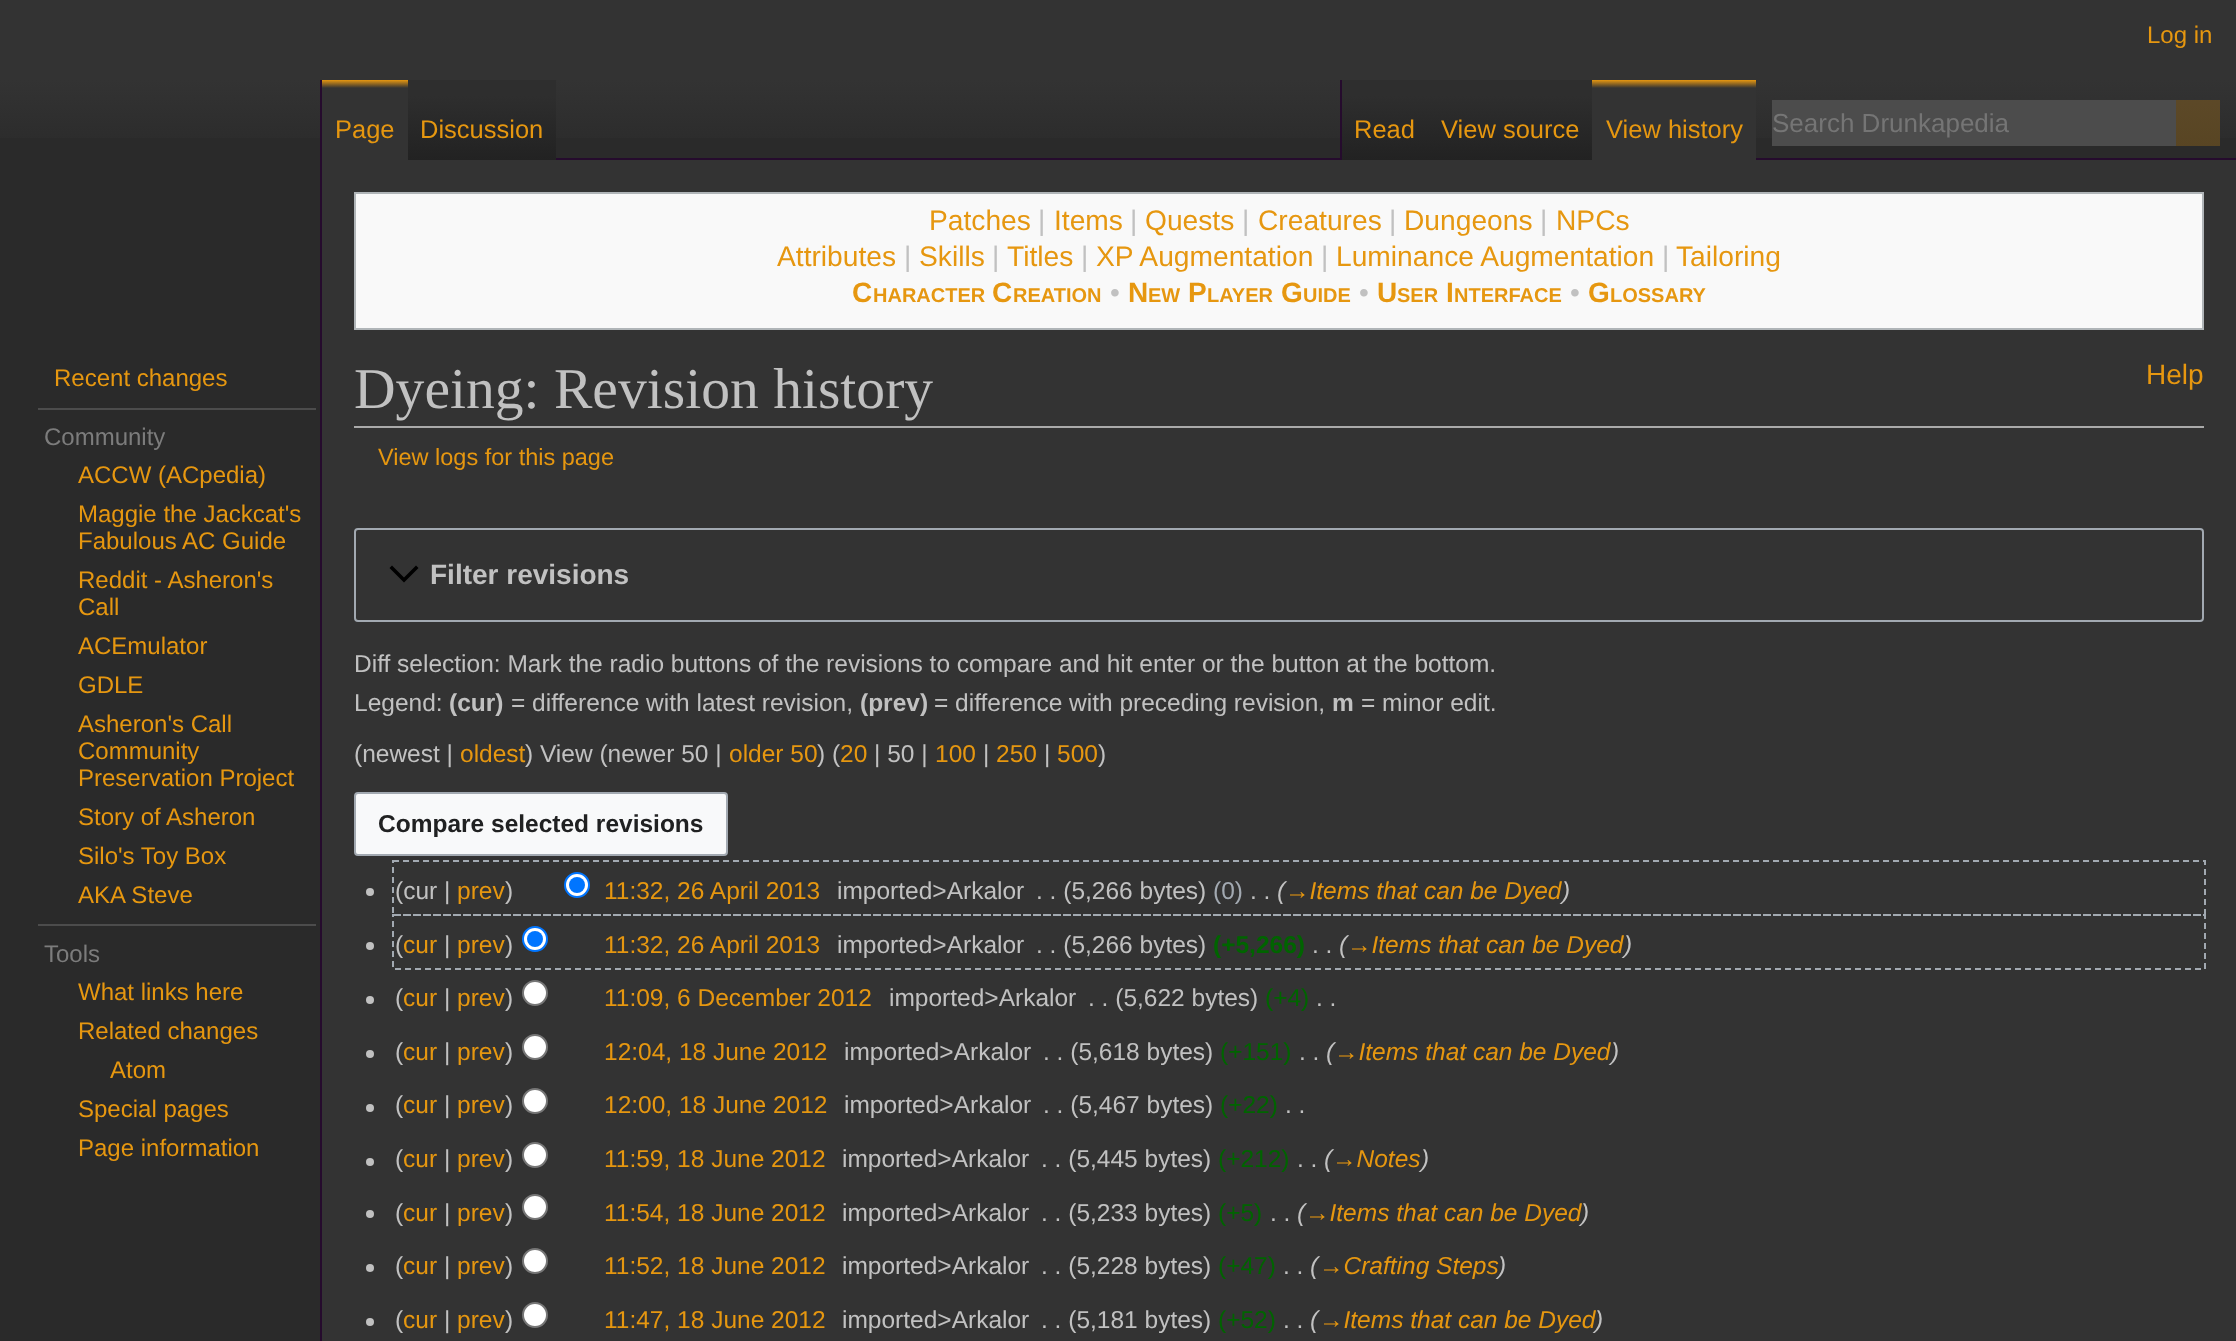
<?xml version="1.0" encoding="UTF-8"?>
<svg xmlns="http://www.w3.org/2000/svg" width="2236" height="1341">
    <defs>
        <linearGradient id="g1" gradientUnits="userSpaceOnUse" x1="1118" y1="0" x2="1118" y2="160"><stop offset="0.5" stop-color="#333333"/><stop offset="1" stop-color="#2A2A2A"/></linearGradient>
        <linearGradient id="g2" gradientUnits="userSpaceOnUse" x1="1118" y1="0" x2="1118" y2="160"><stop offset="0.5" stop-color="#5E4A29"/><stop offset="1" stop-color="#574422"/></linearGradient>
        <linearGradient id="g3" gradientUnits="userSpaceOnUse" x1="365" y1="80" x2="365" y2="160"><stop offset="0" stop-color="#E69710"/><stop offset="0.1" stop-color="#333333"/></linearGradient>
        <linearGradient id="g4" gradientUnits="userSpaceOnUse" x1="482" y1="80" x2="482" y2="160"><stop offset="0.2" stop-color="#2E2E2E"/><stop offset="1" stop-color="#222222"/></linearGradient>
        <linearGradient id="g5" gradientUnits="userSpaceOnUse" x1="1385" y1="80" x2="1385" y2="160"><stop offset="0.2" stop-color="#2E2E2E"/><stop offset="1" stop-color="#222222"/></linearGradient>
        <linearGradient id="g6" gradientUnits="userSpaceOnUse" x1="1510" y1="80" x2="1510" y2="160"><stop offset="0.2" stop-color="#2E2E2E"/><stop offset="1" stop-color="#222222"/></linearGradient>
        <linearGradient id="g7" gradientUnits="userSpaceOnUse" x1="1674" y1="80" x2="1674" y2="160"><stop offset="0" stop-color="#E69710"/><stop offset="0.1" stop-color="#333333"/></linearGradient>
    </defs>
    <rect width="100%" height="100%" fill="#2A2A2A"/>
    <rect x="0" y="0" width="2236" height="138" fill="url(#g1)"/>
    <rect x="2176" y="100" width="44" height="46" fill="url(#g2)"/>
    <text x="2147" y="43" font-family="Liberation Sans" font-size="24" fill="#E69710">Log in</text>
    <rect x="320" y="158" width="2" height="1183" fill="#250B2D"/>
    <rect x="320" y="80" width="2" height="80" fill="#250B2D"/>
    <rect x="322" y="80" width="86" height="80" fill="url(#g3)"/>
    <text x="335" y="138" font-family="Liberation Sans" font-size="25.5" fill="#E69710">Page</text>
    <rect x="408" y="80" width="148" height="80" fill="url(#g4)"/>
    <text x="420" y="138" font-family="Liberation Sans" font-size="25.5" fill="#E69710">Discussion</text>
    <rect x="556" y="158" width="1680" height="2" fill="#250B2D"/>
    <rect x="1340" y="80" width="2" height="80" fill="#250B2D"/>
    <rect x="1342" y="80" width="86" height="80" fill="url(#g5)"/>
    <text x="1354" y="138" font-family="Liberation Sans" font-size="25.5" fill="#E69710">Read</text>
    <rect x="1428" y="80" width="164" height="80" fill="url(#g6)"/>
    <text x="1441" y="138" font-family="Liberation Sans" font-size="25.5" fill="#E69710">View source</text>
    <rect x="1592" y="80" width="164" height="80" fill="url(#g7)"/>
    <text x="1606" y="138" font-family="Liberation Sans" font-size="25.5" fill="#E69710">View history</text>
    <rect x="1772" y="100" width="404" height="46" fill="#4C4C4C"/>
    <text x="1772" y="132" font-family="Liberation Sans" font-size="26" fill="#757575">Search Drunkapedia</text>
    <text x="54" y="386" font-family="Liberation Sans" font-size="24" fill="#E69710">Recent changes</text>
    <rect x="38" y="408" width="278" height="2" fill="#4C4C4C"/>
    <text x="44" y="445" font-family="Liberation Sans" font-size="24" fill="#7C7C7C">Community</text>
    <text font-family="Liberation Sans" font-size="24" fill="#E69710">
        <tspan x="78" y="483">ACCW (ACpedia)</tspan>
        <tspan x="78" y="522">Maggie the Jackcat's</tspan>
        <tspan x="78" y="549">Fabulous AC Guide</tspan>
        <tspan x="78" y="588">Reddit - Asheron's</tspan>
        <tspan x="78" y="615">Call</tspan>
        <tspan x="78" y="654">ACEmulator</tspan>
        <tspan x="78" y="693">GDLE</tspan>
        <tspan x="78" y="732">Asheron's Call</tspan>
        <tspan x="78" y="759">Community</tspan>
        <tspan x="78" y="786">Preservation Project</tspan>
        <tspan x="78" y="825">Story of Asheron</tspan>
        <tspan x="78" y="864">Silo's Toy Box</tspan>
        <tspan x="78" y="903">AKA Steve</tspan>
    </text>
    <rect x="38" y="924" width="278" height="2" fill="#4C4C4C"/>
    <text x="44" y="962" font-family="Liberation Sans" font-size="24" fill="#7C7C7C">Tools</text>
    <text font-family="Liberation Sans" font-size="24" fill="#E69710">
        <tspan x="78" y="1000">What links here</tspan>
        <tspan x="78" y="1039">Related changes</tspan>
    </text>
    <text x="110" y="1078" font-family="Liberation Sans" font-size="24" fill="#E69710">Atom</text>
    <text font-family="Liberation Sans" font-size="24" fill="#E69710">
        <tspan x="78" y="1117">Special pages</tspan>
        <tspan x="78" y="1156">Page information</tspan>
    </text>
    <rect x="322" y="160" width="1914" height="1181" fill="#333333"/>
    <rect x="355" y="193" width="1848" height="136" fill="#F9F9F9" stroke="#B0B5B8" stroke-width="2"/>
    <text x="929" y="230" font-family="Liberation Sans" font-size="28.2" fill="#E69710">Patches</text>
    <text x="1038" y="230" font-family="Liberation Sans" font-size="28.2" fill="#C1C1C1">|</text>
    <text x="1054" y="230" font-family="Liberation Sans" font-size="28.2" fill="#E69710">Items</text>
    <text x="1130" y="230" font-family="Liberation Sans" font-size="28.2" fill="#C1C1C1">|</text>
    <text x="1145" y="230" font-family="Liberation Sans" font-size="28.2" fill="#E69710">Quests</text>
    <text x="1242" y="230" font-family="Liberation Sans" font-size="28.2" fill="#C1C1C1">|</text>
    <text x="1258" y="230" font-family="Liberation Sans" font-size="28.2" fill="#E69710">Creatures</text>
    <text x="1389" y="230" font-family="Liberation Sans" font-size="28.2" fill="#C1C1C1">|</text>
    <text x="1404" y="230" font-family="Liberation Sans" font-size="28.2" fill="#E69710">Dungeons</text>
    <text x="1540" y="230" font-family="Liberation Sans" font-size="28.2" fill="#C1C1C1">|</text>
    <text x="1556" y="230" font-family="Liberation Sans" font-size="28.2" fill="#E69710">NPCs</text>
    <text x="777" y="266" font-family="Liberation Sans" font-size="28.2" fill="#E69710">Attributes</text>
    <text x="904" y="266" font-family="Liberation Sans" font-size="28.2" fill="#C1C1C1">|</text>
    <text x="919" y="266" font-family="Liberation Sans" font-size="28.2" fill="#E69710">Skills</text>
    <text x="992" y="266" font-family="Liberation Sans" font-size="28.2" fill="#C1C1C1">|</text>
    <text x="1007" y="266" font-family="Liberation Sans" font-size="28.2" fill="#E69710">Titles</text>
    <text x="1081" y="266" font-family="Liberation Sans" font-size="28.2" fill="#C1C1C1">|</text>
    <text x="1096" y="266" font-family="Liberation Sans" font-size="28.2" fill="#E69710">XP Augmentation</text>
    <text x="1321" y="266" font-family="Liberation Sans" font-size="28.2" fill="#C1C1C1">|</text>
    <text x="1336" y="266" font-family="Liberation Sans" font-size="28.2" fill="#E69710">Luminance Augmentation</text>
    <text x="1662" y="266" font-family="Liberation Sans" font-size="28.2" fill="#C1C1C1">|</text>
    <text x="1676" y="266" font-family="Liberation Sans" font-size="28.2" fill="#E69710">Tailoring</text>
    <text x="852" y="302" font-family="Liberation Sans" font-size="28" font-weight="700" fill="#E69710">C</text>
    <text x="873" y="302" font-family="Liberation Sans" font-size="20" font-weight="700" fill="#E69710">HARACTER</text>
    <text x="992" y="302" font-family="Liberation Sans" font-size="28" font-weight="700" fill="#E69710">C</text>
    <text x="1013" y="302" font-family="Liberation Sans" font-size="20" font-weight="700" fill="#E69710">REATION</text>
    <text x="1110" y="302" font-family="Liberation Sans" font-size="28" fill="#C1C1C1">•</text>
    <text x="1128" y="302" font-family="Liberation Sans" font-size="28" font-weight="700" fill="#E69710">N</text>
    <text x="1148" y="302" font-family="Liberation Sans" font-size="20" font-weight="700" fill="#E69710">EW</text>
    <text x="1188" y="302" font-family="Liberation Sans" font-size="28" font-weight="700" fill="#E69710">P</text>
    <text x="1207" y="302" font-family="Liberation Sans" font-size="20" font-weight="700" fill="#E69710">LAYER</text>
    <text x="1281" y="302" font-family="Liberation Sans" font-size="28" font-weight="700" fill="#E69710">G</text>
    <text x="1303" y="302" font-family="Liberation Sans" font-size="20" font-weight="700" fill="#E69710">UIDE</text>
    <text x="1359" y="302" font-family="Liberation Sans" font-size="28" fill="#C1C1C1">•</text>
    <text x="1377" y="302" font-family="Liberation Sans" font-size="28" font-weight="700" fill="#E69710">U</text>
    <text x="1397" y="302" font-family="Liberation Sans" font-size="20" font-weight="700" fill="#E69710">SER</text>
    <text x="1446" y="302" font-family="Liberation Sans" font-size="28" font-weight="700" fill="#E69710">I</text>
    <text x="1454" y="302" font-family="Liberation Sans" font-size="20" font-weight="700" fill="#E69710">NTERFACE</text>
    <text x="1570" y="302" font-family="Liberation Sans" font-size="28" fill="#C1C1C1">•</text>
    <text x="1588" y="302" font-family="Liberation Sans" font-size="28" font-weight="700" fill="#E69710">G</text>
    <text x="1610" y="302" font-family="Liberation Sans" font-size="20" font-weight="700" fill="#E69710">LOSSARY</text>
    <rect x="354" y="426" width="1850" height="2" fill="#AAAAAA"/>
    <text x="354" y="408" font-family="Liberation Serif" font-size="57.6" fill="#C1C1C1">Dyeing: Revision history</text>
    <text x="2146" y="384" font-family="Liberation Sans" font-size="28" fill="#E69710">Help</text>
    <text x="378" y="465" font-family="Liberation Sans" font-size="23.5" fill="#E69710">View logs for this page</text>
    <rect x="355" y="529" width="1848" height="92" rx="3" fill="none" stroke="#A2A9B1" stroke-width="2"/>
    <path d="M 416 565.5 L 404 577.5 L 392 565.5 L 389.5 568 L 404 582.5 L 418.5 568 Z" fill="#000000"/>
    <text x="430" y="584" font-family="Liberation Sans" font-size="28" font-weight="700" fill="#C1C1C1">Filter revisions</text>
    <text font-family="Liberation Sans" font-size="24.5" fill="#C1C1C1">
        <tspan x="354" y="672">Diff selection: Mark the radio buttons of the revisions to compare and hit enter or the button at the bottom.</tspan>
        <tspan x="354" y="711">Legend:</tspan>
    </text>
    <text x="449" y="711" font-family="Liberation Sans" font-size="24.5" font-weight="700" fill="#C1C1C1">(cur)</text>
    <text x="511" y="711" font-family="Liberation Sans" font-size="24.5" fill="#C1C1C1">= difference with latest revision,</text>
    <text x="860" y="711" font-family="Liberation Sans" font-size="24.5" font-weight="700" fill="#C1C1C1">(prev)</text>
    <text x="934" y="711" font-family="Liberation Sans" font-size="24.5" fill="#C1C1C1">= difference with preceding revision,</text>
    <text x="1332" y="711" font-family="Liberation Sans" font-size="24.5" font-weight="700" fill="#C1C1C1">m</text>
    <text x="1361" y="711" font-family="Liberation Sans" font-size="24.5" fill="#C1C1C1">= minor edit.</text>
    <text x="354" y="762" font-family="Liberation Sans" font-size="24.5" fill="#C1C1C1">(newest |</text>
    <text x="460" y="762" font-family="Liberation Sans" font-size="24.5" fill="#E69710">oldest</text>
    <text x="525" y="762" font-family="Liberation Sans" font-size="24.5" fill="#C1C1C1">) View (newer 50 |</text>
    <text x="729" y="762" font-family="Liberation Sans" font-size="24.5" fill="#E69710">older 50</text>
    <text x="817" y="762" font-family="Liberation Sans" font-size="24.5" fill="#C1C1C1">) (</text>
    <text x="840" y="762" font-family="Liberation Sans" font-size="24.5" fill="#E69710">20</text>
    <text x="874" y="762" font-family="Liberation Sans" font-size="24.5" fill="#C1C1C1">| 50 |</text>
    <text x="935" y="762" font-family="Liberation Sans" font-size="24.5" fill="#E69710">100</text>
    <text x="983" y="762" font-family="Liberation Sans" font-size="24.5" fill="#C1C1C1">|</text>
    <text x="996" y="762" font-family="Liberation Sans" font-size="24.5" fill="#E69710">250</text>
    <text x="1044" y="762" font-family="Liberation Sans" font-size="24.5" fill="#C1C1C1">|</text>
    <text x="1057" y="762" font-family="Liberation Sans" font-size="24.5" fill="#E69710">500</text>
    <text x="1098" y="762" font-family="Liberation Sans" font-size="24.5" fill="#C1C1C1">)</text>
    <rect x="355" y="793" width="372" height="62" rx="3" fill="#F8F9FA" stroke="#A2A9B1" stroke-width="2"/>
    <text x="378" y="832" font-family="Liberation Sans" font-size="24.5" font-weight="700" fill="#202122">Compare selected revisions</text>
    <text x="395" y="899" font-family="Liberation Sans" font-size="24.5" fill="#C1C1C1">(cur |</text>
    <text x="457" y="899" font-family="Liberation Sans" font-size="24.5" fill="#E69710">prev</text>
    <text x="505" y="899" font-family="Liberation Sans" font-size="24.5" fill="#C1C1C1">)</text>
    <circle cx="577" cy="885" r="12" fill="#FFFFFF" stroke="#0075FF" stroke-width="2"/>
    <circle cx="577" cy="885" r="8" fill="#0075FF"/>
    <text x="604" y="899" font-family="Liberation Sans" font-size="24.5" fill="#E69710">11:32, 26 April 2013</text>
    <text x="837" y="899" font-family="Liberation Sans" font-size="24.5" fill="#C1C1C1">imported&gt;Arkalor</text>
    <text x="1036" y="899" font-family="Liberation Sans" font-size="24.5" fill="#C1C1C1">. . (5,266 bytes)</text>
    <text x="1277" y="899" font-family="Liberation Sans" font-size="24.5" font-style="italic" fill="#C1C1C1">(</text>
    <text x="1285" y="899" font-family="Liberation Sans" font-size="24.5" font-style="italic" fill="#E69710">→Items that can be Dyed</text>
    <text x="1562" y="899" font-family="Liberation Sans" font-size="24.5" font-style="italic" fill="#C1C1C1">)</text>
    <text x="1250" y="899" font-family="Liberation Sans" font-size="24.5" fill="#C1C1C1">. .</text>
    <path d="M 393 861 H 2205 V 915 H 393 Z" fill="none" stroke="#A2A9B1" stroke-width="2" stroke-dasharray="6 4"/>
    <circle cx="370" cy="892" r="4" fill="#C1C1C1"/>
    <text x="1213" y="899" font-family="Liberation Sans" font-size="24.5" fill="#A2A9B1">(0)</text>
    <text x="395" y="953" font-family="Liberation Sans" font-size="24.5" fill="#C1C1C1">(</text>
    <text x="403" y="953" font-family="Liberation Sans" font-size="24.5" fill="#E69710">cur</text>
    <text x="444" y="953" font-family="Liberation Sans" font-size="24.5" fill="#C1C1C1">|</text>
    <text x="457" y="953" font-family="Liberation Sans" font-size="24.5" fill="#E69710">prev</text>
    <text x="505" y="953" font-family="Liberation Sans" font-size="24.5" fill="#C1C1C1">)</text>
    <circle cx="535" cy="939" r="12" fill="#FFFFFF" stroke="#0075FF" stroke-width="2"/>
    <circle cx="535" cy="939" r="8" fill="#0075FF"/>
    <text x="604" y="953" font-family="Liberation Sans" font-size="24.5" fill="#E69710">11:32, 26 April 2013</text>
    <text x="837" y="953" font-family="Liberation Sans" font-size="24.5" fill="#C1C1C1">imported&gt;Arkalor</text>
    <text x="1036" y="953" font-family="Liberation Sans" font-size="24.5" fill="#C1C1C1">. . (5,266 bytes)</text>
    <text x="1213" y="953" font-family="Liberation Sans" font-size="24.5" font-weight="700" fill="#006400">(+5,266)</text>
    <text x="1339" y="953" font-family="Liberation Sans" font-size="24.5" font-style="italic" fill="#C1C1C1">(</text>
    <text x="1347" y="953" font-family="Liberation Sans" font-size="24.5" font-style="italic" fill="#E69710">→Items that can be Dyed</text>
    <text x="1624" y="953" font-family="Liberation Sans" font-size="24.5" font-style="italic" fill="#C1C1C1">)</text>
    <text x="1312" y="953" font-family="Liberation Sans" font-size="24.5" fill="#C1C1C1">. .</text>
    <path d="M 393 915 H 2205 V 969 H 393 Z" fill="none" stroke="#A2A9B1" stroke-width="2" stroke-dasharray="6 4"/>
    <circle cx="370" cy="946" r="4" fill="#C1C1C1"/>
    <circle cx="370" cy="1000" r="4" fill="#C1C1C1"/>
    <text x="395" y="1006" font-family="Liberation Sans" font-size="24.5" fill="#C1C1C1">(</text>
    <text x="403" y="1006" font-family="Liberation Sans" font-size="24.5" fill="#E69710">cur</text>
    <text x="444" y="1006" font-family="Liberation Sans" font-size="24.5" fill="#C1C1C1">|</text>
    <text x="457" y="1006" font-family="Liberation Sans" font-size="24.5" fill="#E69710">prev</text>
    <text x="505" y="1006" font-family="Liberation Sans" font-size="24.5" fill="#C1C1C1">)</text>
    <circle cx="535" cy="993" r="12" fill="#FFFFFF" stroke="#767676" stroke-width="2"/>
    <text x="604" y="1006" font-family="Liberation Sans" font-size="24.5" fill="#E69710">11:09, 6 December 2012</text>
    <text x="889" y="1006" font-family="Liberation Sans" font-size="24.5" fill="#C1C1C1">imported&gt;Arkalor</text>
    <text x="1088" y="1006" font-family="Liberation Sans" font-size="24.5" fill="#C1C1C1">. . (5,622 bytes)</text>
    <text x="1265" y="1006" font-family="Liberation Sans" font-size="24.5" fill="#006400">(+4)</text>
    <text x="1316" y="1006" font-family="Liberation Sans" font-size="24.5" fill="#C1C1C1">. .</text>
    <circle cx="370" cy="1054" r="4" fill="#C1C1C1"/>
    <text x="395" y="1060" font-family="Liberation Sans" font-size="24.5" fill="#C1C1C1">(</text>
    <text x="403" y="1060" font-family="Liberation Sans" font-size="24.5" fill="#E69710">cur</text>
    <text x="444" y="1060" font-family="Liberation Sans" font-size="24.5" fill="#C1C1C1">|</text>
    <text x="457" y="1060" font-family="Liberation Sans" font-size="24.5" fill="#E69710">prev</text>
    <text x="505" y="1060" font-family="Liberation Sans" font-size="24.5" fill="#C1C1C1">)</text>
    <circle cx="535" cy="1047" r="12" fill="#FFFFFF" stroke="#767676" stroke-width="2"/>
    <text x="604" y="1060" font-family="Liberation Sans" font-size="24.5" fill="#E69710">12:04, 18 June 2012</text>
    <text x="844" y="1060" font-family="Liberation Sans" font-size="24.5" fill="#C1C1C1">imported&gt;Arkalor</text>
    <text x="1043" y="1060" font-family="Liberation Sans" font-size="24.5" fill="#C1C1C1">. . (5,618 bytes)</text>
    <text x="1220" y="1060" font-family="Liberation Sans" font-size="24.5" fill="#006400">(+151)</text>
    <text x="1326" y="1060" font-family="Liberation Sans" font-size="24.5" font-style="italic" fill="#C1C1C1">(</text>
    <text x="1334" y="1060" font-family="Liberation Sans" font-size="24.5" font-style="italic" fill="#E69710">→Items that can be Dyed</text>
    <text x="1611" y="1060" font-family="Liberation Sans" font-size="24.5" font-style="italic" fill="#C1C1C1">)</text>
    <text x="1299" y="1060" font-family="Liberation Sans" font-size="24.5" fill="#C1C1C1">. .</text>
    <circle cx="370" cy="1108" r="4" fill="#C1C1C1"/>
    <text x="395" y="1113" font-family="Liberation Sans" font-size="24.5" fill="#C1C1C1">(</text>
    <text x="403" y="1113" font-family="Liberation Sans" font-size="24.5" fill="#E69710">cur</text>
    <text x="444" y="1113" font-family="Liberation Sans" font-size="24.5" fill="#C1C1C1">|</text>
    <text x="457" y="1113" font-family="Liberation Sans" font-size="24.5" fill="#E69710">prev</text>
    <text x="505" y="1113" font-family="Liberation Sans" font-size="24.5" fill="#C1C1C1">)</text>
    <circle cx="535" cy="1101" r="12" fill="#FFFFFF" stroke="#767676" stroke-width="2"/>
    <text x="604" y="1113" font-family="Liberation Sans" font-size="24.5" fill="#E69710">12:00, 18 June 2012</text>
    <text x="844" y="1113" font-family="Liberation Sans" font-size="24.5" fill="#C1C1C1">imported&gt;Arkalor</text>
    <text x="1043" y="1113" font-family="Liberation Sans" font-size="24.5" fill="#C1C1C1">. . (5,467 bytes)</text>
    <text x="1220" y="1113" font-family="Liberation Sans" font-size="24.5" fill="#006400">(+22)</text>
    <text x="1285" y="1113" font-family="Liberation Sans" font-size="24.5" fill="#C1C1C1">. .</text>
    <circle cx="370" cy="1162" r="4" fill="#C1C1C1"/>
    <text x="395" y="1167" font-family="Liberation Sans" font-size="24.5" fill="#C1C1C1">(</text>
    <text x="403" y="1167" font-family="Liberation Sans" font-size="24.5" fill="#E69710">cur</text>
    <text x="444" y="1167" font-family="Liberation Sans" font-size="24.5" fill="#C1C1C1">|</text>
    <text x="457" y="1167" font-family="Liberation Sans" font-size="24.5" fill="#E69710">prev</text>
    <text x="505" y="1167" font-family="Liberation Sans" font-size="24.5" fill="#C1C1C1">)</text>
    <circle cx="535" cy="1155" r="12" fill="#FFFFFF" stroke="#767676" stroke-width="2"/>
    <text x="604" y="1167" font-family="Liberation Sans" font-size="24.5" fill="#E69710">11:59, 18 June 2012</text>
    <text x="842" y="1167" font-family="Liberation Sans" font-size="24.5" fill="#C1C1C1">imported&gt;Arkalor</text>
    <text x="1041" y="1167" font-family="Liberation Sans" font-size="24.5" fill="#C1C1C1">. . (5,445 bytes)</text>
    <text x="1218" y="1167" font-family="Liberation Sans" font-size="24.5" fill="#006400">(+212)</text>
    <text x="1297" y="1167" font-family="Liberation Sans" font-size="24.5" fill="#C1C1C1">. .</text>
    <text x="1324" y="1167" font-family="Liberation Sans" font-size="24.5" font-style="italic" fill="#C1C1C1">(</text>
    <text x="1332" y="1167" font-family="Liberation Sans" font-size="24.5" font-style="italic" fill="#E69710">→Notes</text>
    <text x="1421" y="1167" font-family="Liberation Sans" font-size="24.5" font-style="italic" fill="#C1C1C1">)</text>
    <circle cx="370" cy="1214" r="4" fill="#C1C1C1"/>
    <text x="395" y="1221" font-family="Liberation Sans" font-size="24.5" fill="#C1C1C1">(</text>
    <text x="403" y="1221" font-family="Liberation Sans" font-size="24.5" fill="#E69710">cur</text>
    <text x="444" y="1221" font-family="Liberation Sans" font-size="24.5" fill="#C1C1C1">|</text>
    <text x="457" y="1221" font-family="Liberation Sans" font-size="24.5" fill="#E69710">prev</text>
    <text x="505" y="1221" font-family="Liberation Sans" font-size="24.5" fill="#C1C1C1">)</text>
    <circle cx="535" cy="1207" r="12" fill="#FFFFFF" stroke="#767676" stroke-width="2"/>
    <text x="604" y="1221" font-family="Liberation Sans" font-size="24.5" fill="#E69710">11:54, 18 June 2012</text>
    <text x="842" y="1221" font-family="Liberation Sans" font-size="24.5" fill="#C1C1C1">imported&gt;Arkalor</text>
    <text x="1041" y="1221" font-family="Liberation Sans" font-size="24.5" fill="#C1C1C1">. . (5,233 bytes)</text>
    <text x="1218" y="1221" font-family="Liberation Sans" font-size="24.5" fill="#006400">(+5)</text>
    <text x="1297" y="1221" font-family="Liberation Sans" font-size="24.5" font-style="italic" fill="#C1C1C1">(</text>
    <text x="1305" y="1221" font-family="Liberation Sans" font-size="24.5" font-style="italic" fill="#E69710">→Items that can be Dyed</text>
    <text x="1581" y="1221" font-family="Liberation Sans" font-size="24.5" font-style="italic" fill="#C1C1C1">)</text>
    <text x="1270" y="1221" font-family="Liberation Sans" font-size="24.5" fill="#C1C1C1">. .</text>
    <circle cx="370" cy="1268" r="4" fill="#C1C1C1"/>
    <text x="395" y="1274" font-family="Liberation Sans" font-size="24.5" fill="#C1C1C1">(</text>
    <text x="403" y="1274" font-family="Liberation Sans" font-size="24.5" fill="#E69710">cur</text>
    <text x="444" y="1274" font-family="Liberation Sans" font-size="24.5" fill="#C1C1C1">|</text>
    <text x="457" y="1274" font-family="Liberation Sans" font-size="24.5" fill="#E69710">prev</text>
    <text x="505" y="1274" font-family="Liberation Sans" font-size="24.5" fill="#C1C1C1">)</text>
    <circle cx="535" cy="1261" r="12" fill="#FFFFFF" stroke="#767676" stroke-width="2"/>
    <text x="604" y="1274" font-family="Liberation Sans" font-size="24.5" fill="#E69710">11:52, 18 June 2012</text>
    <text x="842" y="1274" font-family="Liberation Sans" font-size="24.5" fill="#C1C1C1">imported&gt;Arkalor</text>
    <text x="1041" y="1274" font-family="Liberation Sans" font-size="24.5" fill="#C1C1C1">. . (5,228 bytes)</text>
    <text x="1218" y="1274" font-family="Liberation Sans" font-size="24.5" fill="#006400">(+47)</text>
    <text x="1310" y="1274" font-family="Liberation Sans" font-size="24.5" font-style="italic" fill="#C1C1C1">(</text>
    <text x="1319" y="1274" font-family="Liberation Sans" font-size="24.5" font-style="italic" fill="#E69710">→Crafting Steps</text>
    <text x="1498" y="1274" font-family="Liberation Sans" font-size="24.5" font-style="italic" fill="#C1C1C1">)</text>
    <text x="1283" y="1274" font-family="Liberation Sans" font-size="24.5" fill="#C1C1C1">. .</text>
    <circle cx="370" cy="1322" r="4" fill="#C1C1C1"/>
    <text x="395" y="1328" font-family="Liberation Sans" font-size="24.5" fill="#C1C1C1">(</text>
    <text x="403" y="1328" font-family="Liberation Sans" font-size="24.5" fill="#E69710">cur</text>
    <text x="444" y="1328" font-family="Liberation Sans" font-size="24.5" fill="#C1C1C1">|</text>
    <text x="457" y="1328" font-family="Liberation Sans" font-size="24.5" fill="#E69710">prev</text>
    <text x="505" y="1328" font-family="Liberation Sans" font-size="24.5" fill="#C1C1C1">)</text>
    <circle cx="535" cy="1315" r="12" fill="#FFFFFF" stroke="#767676" stroke-width="2"/>
    <text x="604" y="1328" font-family="Liberation Sans" font-size="24.5" fill="#E69710">11:47, 18 June 2012</text>
    <text x="842" y="1328" font-family="Liberation Sans" font-size="24.5" fill="#C1C1C1">imported&gt;Arkalor</text>
    <text x="1041" y="1328" font-family="Liberation Sans" font-size="24.5" fill="#C1C1C1">. . (5,181 bytes)</text>
    <text x="1218" y="1328" font-family="Liberation Sans" font-size="24.5" fill="#006400">(+52)</text>
    <text x="1310" y="1328" font-family="Liberation Sans" font-size="24.5" font-style="italic" fill="#C1C1C1">(</text>
    <text x="1319" y="1328" font-family="Liberation Sans" font-size="24.5" font-style="italic" fill="#E69710">→Items that can be Dyed</text>
    <text x="1595" y="1328" font-family="Liberation Sans" font-size="24.5" font-style="italic" fill="#C1C1C1">)</text>
    <text x="1283" y="1328" font-family="Liberation Sans" font-size="24.5" fill="#C1C1C1">. .</text>
</svg>
